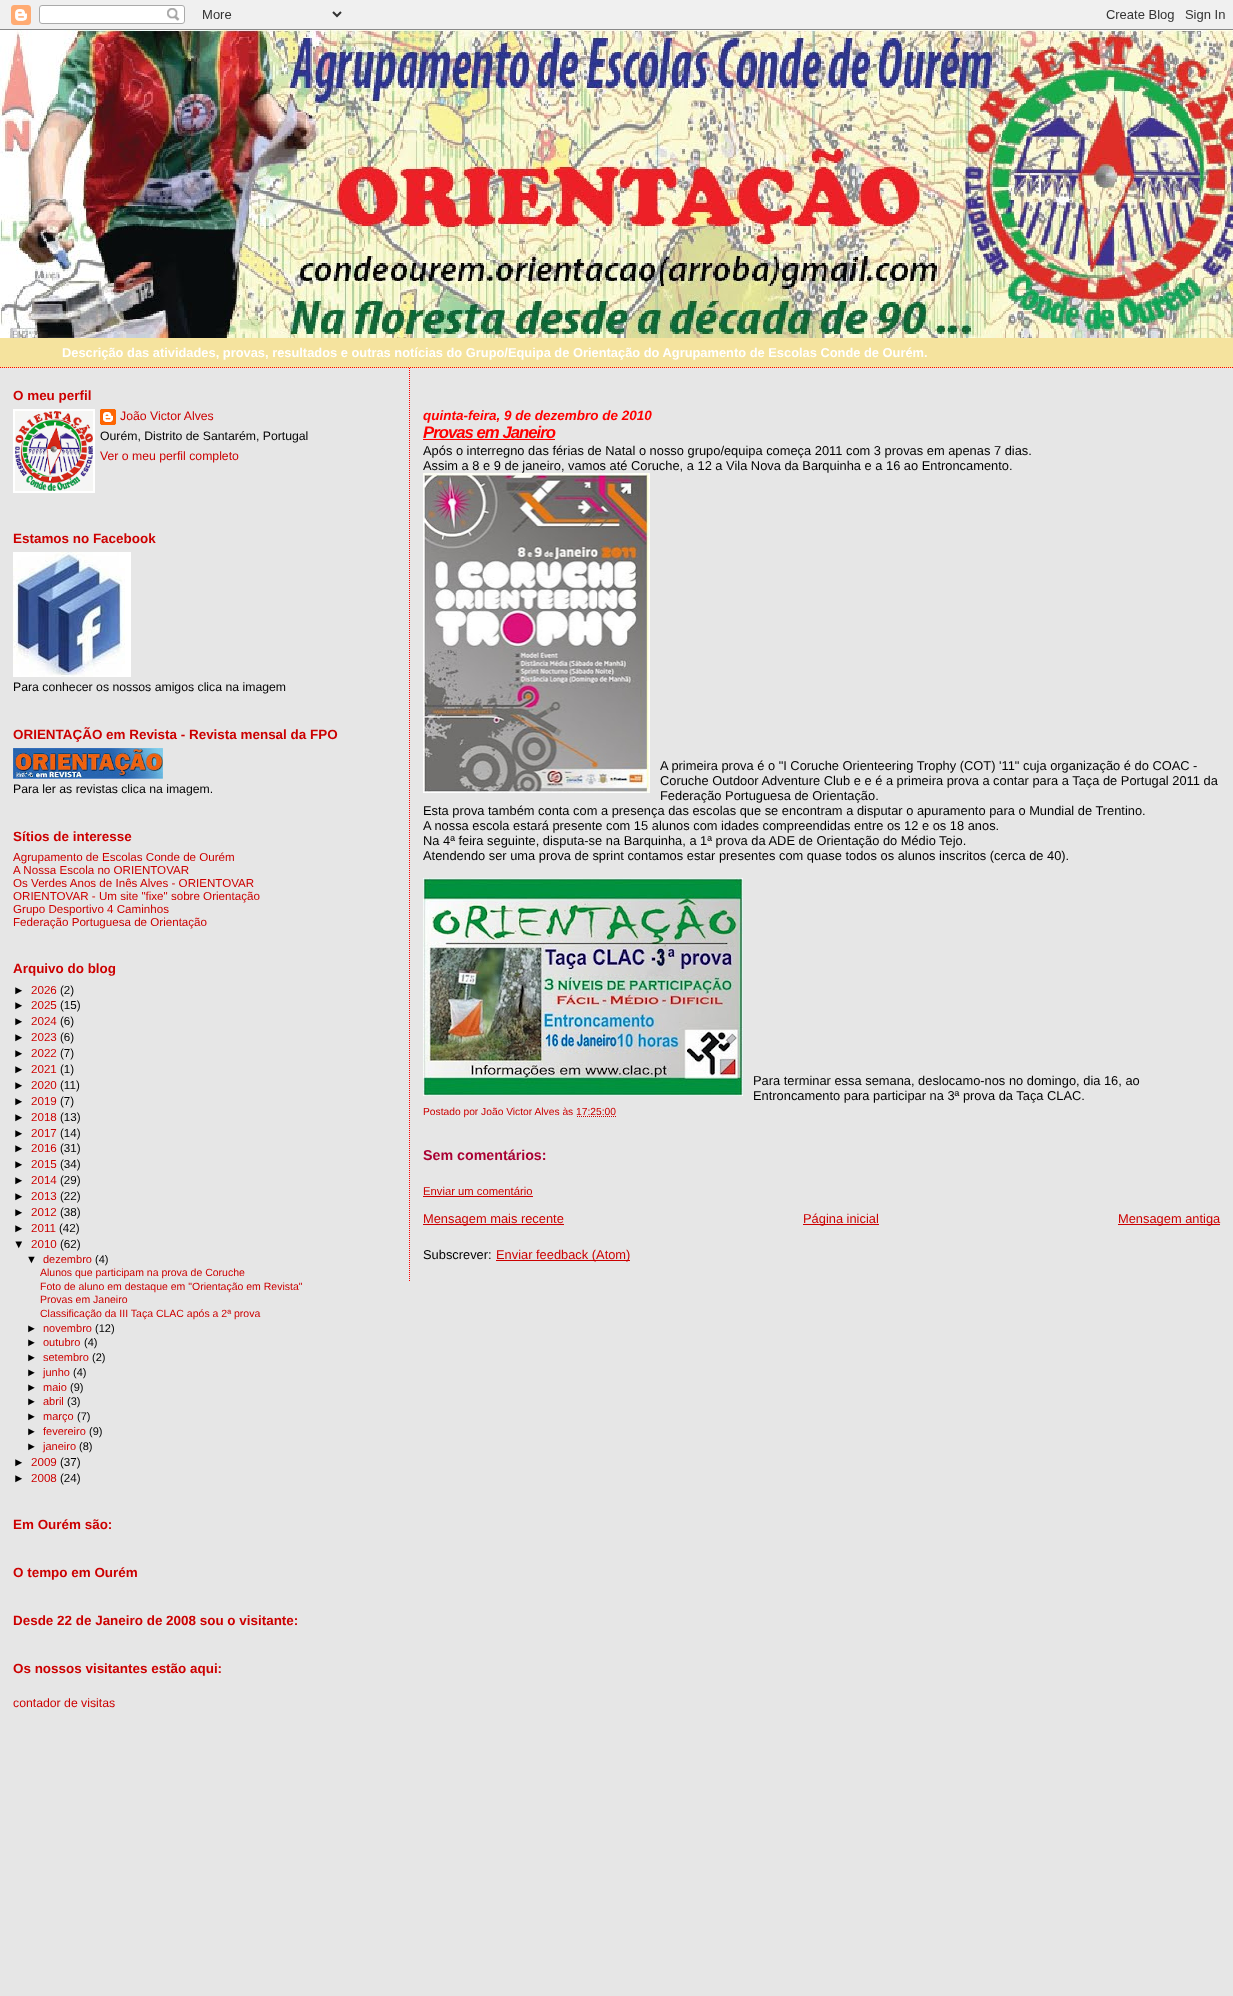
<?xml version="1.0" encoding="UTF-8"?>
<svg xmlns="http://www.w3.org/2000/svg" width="1233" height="1996">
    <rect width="100%" height="100%" fill="#E6E6E6"/>
    <image x="0" y="0" width="1233" height="30" href="img_01.png"/>
    <rect x="0" y="338" width="1233" height="30" fill="#F5E39E"/>
    <path d="M 0 367.5 H 1233" fill="none" stroke="#FF0000" stroke-dasharray="1 1"/>
    <image x="0" y="30" width="1233" height="308" href="img_02.png"/>
    <text x="62" y="357" font-family="Liberation Sans" font-size="12.87" font-weight="700" fill="#FFFFFF">Descrição das atividades, provas, resultados e outras notícias do Grupo/Equipa de Orientação do Agrupamento de Escolas Conde de Ourém.</text>
    <text x="13" y="400" font-family="Liberation Sans" font-size="13.45" font-weight="700" fill="#CC0000">O meu perfil</text>
    <rect x="14" y="410" width="80" height="82" fill="none" stroke="#FFFFFF" stroke-width="2"/>
    <image x="15" y="411" width="78" height="80" href="img_03.png"/>
    <image x="100" y="409" width="16" height="16" href="img_04.png"/>
    <text x="120" y="420" font-family="Liberation Sans" font-size="12.25" fill="#CC0000">João Victor Alves</text>
    <text x="100" y="440" font-family="Liberation Sans" font-size="12.25" fill="#000000">Ourém, Distrito de Santarém, Portugal</text>
    <text x="100" y="460" font-family="Liberation Sans" font-size="12.25" fill="#CC0000">Ver o meu perfil completo</text>
    <text x="13" y="543" font-family="Liberation Sans" font-size="13.45" font-weight="700" fill="#CC0000">Estamos no Facebook</text>
    <image x="13" y="552" width="118" height="125" href="img_05.png"/>
    <text x="13" y="691" font-family="Liberation Sans" font-size="12.25" fill="#000000">Para conhecer os nossos amigos clica na imagem</text>
    <text x="13" y="739" font-family="Liberation Sans" font-size="13.45" font-weight="700" fill="#CC0000">ORIENTAÇÃO em Revista - Revista mensal da FPO</text>
    <image x="13" y="748" width="150" height="31" href="img_06.png"/>
    <text x="13" y="793" font-family="Liberation Sans" font-size="12.25" fill="#000000">Para ler as revistas clica na imagem.</text>
    <text x="13" y="841" font-family="Liberation Sans" font-size="13.45" font-weight="700" fill="#CC0000">Sítios de interesse</text>
    <text font-family="Liberation Sans" font-size="11.6" fill="#CC0000">
        <tspan x="13" y="861">Agrupamento de Escolas Conde de Ourém</tspan>
        <tspan x="13" y="874">A Nossa Escola no ORIENTOVAR</tspan>
        <tspan x="13" y="887">Os Verdes Anos de Inês Alves - ORIENTOVAR</tspan>
        <tspan x="13" y="900">ORIENTOVAR - Um site "fixe" sobre Orientação</tspan>
        <tspan x="13" y="913">Grupo Desportivo 4 Caminhos</tspan>
        <tspan x="13" y="926">Federação Portuguesa de Orientação</tspan>
    </text>
    <text x="13" y="973" font-family="Liberation Sans" font-size="13.45" font-weight="700" fill="#CC0000">Arquivo do blog</text>
    <text x="13" y="994" font-family="Liberation Sans" font-size="11.6" fill="#000000">►</text>
    <text x="31" y="994" font-family="Liberation Sans" font-size="11.6" fill="#CC0000">2026</text>
    <text x="60" y="994" font-family="Liberation Sans" font-size="11.6" fill="#000000">(2)</text>
    <text x="13" y="1009" font-family="Liberation Sans" font-size="11.6" fill="#000000">►</text>
    <text x="31" y="1009" font-family="Liberation Sans" font-size="11.6" fill="#CC0000">2025</text>
    <text x="60" y="1009" font-family="Liberation Sans" font-size="11.6" fill="#000000">(15)</text>
    <text x="13" y="1025" font-family="Liberation Sans" font-size="11.6" fill="#000000">►</text>
    <text x="31" y="1025" font-family="Liberation Sans" font-size="11.6" fill="#CC0000">2024</text>
    <text x="60" y="1025" font-family="Liberation Sans" font-size="11.6" fill="#000000">(6)</text>
    <text x="13" y="1041" font-family="Liberation Sans" font-size="11.6" fill="#000000">►</text>
    <text x="31" y="1041" font-family="Liberation Sans" font-size="11.6" fill="#CC0000">2023</text>
    <text x="60" y="1041" font-family="Liberation Sans" font-size="11.6" fill="#000000">(6)</text>
    <text x="13" y="1057" font-family="Liberation Sans" font-size="11.6" fill="#000000">►</text>
    <text x="31" y="1057" font-family="Liberation Sans" font-size="11.6" fill="#CC0000">2022</text>
    <text x="60" y="1057" font-family="Liberation Sans" font-size="11.6" fill="#000000">(7)</text>
    <text x="13" y="1073" font-family="Liberation Sans" font-size="11.6" fill="#000000">►</text>
    <text x="31" y="1073" font-family="Liberation Sans" font-size="11.6" fill="#CC0000">2021</text>
    <text x="60" y="1073" font-family="Liberation Sans" font-size="11.6" fill="#000000">(1)</text>
    <text x="13" y="1089" font-family="Liberation Sans" font-size="11.6" fill="#000000">►</text>
    <text x="31" y="1089" font-family="Liberation Sans" font-size="11.6" fill="#CC0000">2020</text>
    <text x="60" y="1089" font-family="Liberation Sans" font-size="11.6" fill="#000000">(11)</text>
    <text x="13" y="1105" font-family="Liberation Sans" font-size="11.6" fill="#000000">►</text>
    <text x="31" y="1105" font-family="Liberation Sans" font-size="11.6" fill="#CC0000">2019</text>
    <text x="60" y="1105" font-family="Liberation Sans" font-size="11.6" fill="#000000">(7)</text>
    <text x="13" y="1121" font-family="Liberation Sans" font-size="11.6" fill="#000000">►</text>
    <text x="31" y="1121" font-family="Liberation Sans" font-size="11.6" fill="#CC0000">2018</text>
    <text x="60" y="1121" font-family="Liberation Sans" font-size="11.6" fill="#000000">(13)</text>
    <text x="13" y="1137" font-family="Liberation Sans" font-size="11.6" fill="#000000">►</text>
    <text x="31" y="1137" font-family="Liberation Sans" font-size="11.6" fill="#CC0000">2017</text>
    <text x="60" y="1137" font-family="Liberation Sans" font-size="11.6" fill="#000000">(14)</text>
    <text x="13" y="1152" font-family="Liberation Sans" font-size="11.6" fill="#000000">►</text>
    <text x="31" y="1152" font-family="Liberation Sans" font-size="11.6" fill="#CC0000">2016</text>
    <text x="60" y="1152" font-family="Liberation Sans" font-size="11.6" fill="#000000">(31)</text>
    <text x="13" y="1168" font-family="Liberation Sans" font-size="11.6" fill="#000000">►</text>
    <text x="31" y="1168" font-family="Liberation Sans" font-size="11.6" fill="#CC0000">2015</text>
    <text x="60" y="1168" font-family="Liberation Sans" font-size="11.6" fill="#000000">(34)</text>
    <text x="13" y="1184" font-family="Liberation Sans" font-size="11.6" fill="#000000">►</text>
    <text x="31" y="1184" font-family="Liberation Sans" font-size="11.6" fill="#CC0000">2014</text>
    <text x="60" y="1184" font-family="Liberation Sans" font-size="11.6" fill="#000000">(29)</text>
    <text x="13" y="1200" font-family="Liberation Sans" font-size="11.6" fill="#000000">►</text>
    <text x="31" y="1200" font-family="Liberation Sans" font-size="11.6" fill="#CC0000">2013</text>
    <text x="60" y="1200" font-family="Liberation Sans" font-size="11.6" fill="#000000">(22)</text>
    <text x="13" y="1216" font-family="Liberation Sans" font-size="11.6" fill="#000000">►</text>
    <text x="31" y="1216" font-family="Liberation Sans" font-size="11.6" fill="#CC0000">2012</text>
    <text x="60" y="1216" font-family="Liberation Sans" font-size="11.6" fill="#000000">(38)</text>
    <text x="13" y="1232" font-family="Liberation Sans" font-size="11.6" fill="#000000">►</text>
    <text x="31" y="1232" font-family="Liberation Sans" font-size="11.6" fill="#CC0000">2011</text>
    <text x="59" y="1232" font-family="Liberation Sans" font-size="11.6" fill="#000000">(42)</text>
    <text x="13" y="1248" font-family="Liberation Sans" font-size="11.6" fill="#000000">▼</text>
    <text x="31" y="1248" font-family="Liberation Sans" font-size="11.6" fill="#CC0000">2010</text>
    <text x="60" y="1248" font-family="Liberation Sans" font-size="11.6" fill="#000000">(62)</text>
    <text x="26" y="1263" font-family="Liberation Sans" font-size="11" fill="#000000">▼</text>
    <text x="43" y="1263" font-family="Liberation Sans" font-size="11" fill="#CC0000">dezembro</text>
    <text x="95" y="1263" font-family="Liberation Sans" font-size="11" fill="#000000">(4)</text>
    <text font-family="Liberation Sans" font-size="10.5" fill="#CC0000">
        <tspan x="40" y="1276">Alunos que participam na prova de Coruche</tspan>
        <tspan x="40" y="1290">Foto de aluno em destaque em "Orientação em Revista"</tspan>
        <tspan x="40" y="1303">Provas em Janeiro</tspan>
        <tspan x="40" y="1317">Classificação da III Taça CLAC após a 2ª prova</tspan>
    </text>
    <text x="26" y="1332" font-family="Liberation Sans" font-size="11" fill="#000000">►</text>
    <text x="43" y="1332" font-family="Liberation Sans" font-size="11" fill="#CC0000">novembro</text>
    <text x="95" y="1332" font-family="Liberation Sans" font-size="11" fill="#000000">(12)</text>
    <text x="26" y="1346" font-family="Liberation Sans" font-size="11" fill="#000000">►</text>
    <text x="43" y="1346" font-family="Liberation Sans" font-size="11" fill="#CC0000">outubro</text>
    <text x="84" y="1346" font-family="Liberation Sans" font-size="11" fill="#000000">(4)</text>
    <text x="26" y="1361" font-family="Liberation Sans" font-size="11" fill="#000000">►</text>
    <text x="43" y="1361" font-family="Liberation Sans" font-size="11" fill="#CC0000">setembro</text>
    <text x="92" y="1361" font-family="Liberation Sans" font-size="11" fill="#000000">(2)</text>
    <text x="26" y="1376" font-family="Liberation Sans" font-size="11" fill="#000000">►</text>
    <text x="43" y="1376" font-family="Liberation Sans" font-size="11" fill="#CC0000">junho</text>
    <text x="73" y="1376" font-family="Liberation Sans" font-size="11" fill="#000000">(4)</text>
    <text x="26" y="1391" font-family="Liberation Sans" font-size="11" fill="#000000">►</text>
    <text x="43" y="1391" font-family="Liberation Sans" font-size="11" fill="#CC0000">maio</text>
    <text x="70" y="1391" font-family="Liberation Sans" font-size="11" fill="#000000">(9)</text>
    <text x="26" y="1405" font-family="Liberation Sans" font-size="11" fill="#000000">►</text>
    <text x="43" y="1405" font-family="Liberation Sans" font-size="11" fill="#CC0000">abril</text>
    <text x="67" y="1405" font-family="Liberation Sans" font-size="11" fill="#000000">(3)</text>
    <text x="26" y="1420" font-family="Liberation Sans" font-size="11" fill="#000000">►</text>
    <text x="43" y="1420" font-family="Liberation Sans" font-size="11" fill="#CC0000">março</text>
    <text x="77" y="1420" font-family="Liberation Sans" font-size="11" fill="#000000">(7)</text>
    <text x="26" y="1435" font-family="Liberation Sans" font-size="11" fill="#000000">►</text>
    <text x="43" y="1435" font-family="Liberation Sans" font-size="11" fill="#CC0000">fevereiro</text>
    <text x="89" y="1435" font-family="Liberation Sans" font-size="11" fill="#000000">(9)</text>
    <text x="26" y="1450" font-family="Liberation Sans" font-size="11" fill="#000000">►</text>
    <text x="43" y="1450" font-family="Liberation Sans" font-size="11" fill="#CC0000">janeiro</text>
    <text x="79" y="1450" font-family="Liberation Sans" font-size="11" fill="#000000">(8)</text>
    <text x="13" y="1466" font-family="Liberation Sans" font-size="11.6" fill="#000000">►</text>
    <text x="31" y="1466" font-family="Liberation Sans" font-size="11.6" fill="#CC0000">2009</text>
    <text x="60" y="1466" font-family="Liberation Sans" font-size="11.6" fill="#000000">(37)</text>
    <text x="13" y="1482" font-family="Liberation Sans" font-size="11.6" fill="#000000">►</text>
    <text x="31" y="1482" font-family="Liberation Sans" font-size="11.6" fill="#CC0000">2008</text>
    <text x="60" y="1482" font-family="Liberation Sans" font-size="11.6" fill="#000000">(24)</text>
    <text x="13" y="1529" font-family="Liberation Sans" font-size="13.45" font-weight="700" fill="#CC0000">Em Ourém são:</text>
    <text x="13" y="1577" font-family="Liberation Sans" font-size="13.45" font-weight="700" fill="#CC0000">O tempo em Ourém</text>
    <text x="13" y="1625" font-family="Liberation Sans" font-size="13.45" font-weight="700" fill="#CC0000">Desde 22 de Janeiro de 2008 sou o visitante:</text>
    <text x="13" y="1673" font-family="Liberation Sans" font-size="13.45" font-weight="700" fill="#CC0000">Os nossos visitantes estão aqui:</text>
    <text x="13" y="1707" font-family="Liberation Sans" font-size="12.25" fill="#CC0000">contador de visitas</text>
    <path d="M 409.5 368 V 1281" fill="none" stroke="#FF0000" stroke-dasharray="1 1"/>
    <text x="423" y="420" font-family="Liberation Sans" font-size="13.5" font-weight="700" font-style="italic" fill="#FF0000">quinta-feira, 9 de dezembro de 2010</text>
    <text x="423" y="438" font-family="Liberation Sans" font-size="16.75" font-weight="700" font-style="italic" letter-spacing="-1" fill="#FF0000">Provas em Janeiro</text>
    <rect x="423" y="439" width="132" height="1" fill="#FF0000"/>
    <text font-family="Liberation Sans" font-size="12.87" fill="#000000">
        <tspan x="423" y="455">Após o interregno das férias de Natal o nosso grupo/equipa começa 2011 com 3 provas em apenas 7 dias.</tspan>
        <tspan x="423" y="470">Assim a 8 e 9 de janeiro, vamos até Coruche, a 12 a Vila Nova da Barquinha e a 16 ao Entroncamento.</tspan>
    </text>
    <image x="423" y="473" width="227" height="320" href="img_07.png"/>
    <text font-family="Liberation Sans" font-size="12.87" fill="#000000">
        <tspan x="660" y="770">A primeira prova é o "I Coruche Orienteering Trophy (COT) '11" cuja organização é do COAC -</tspan>
        <tspan x="660" y="785">Coruche Outdoor Adventure Club e e é a primeira prova a contar para a Taça de Portugal 2011 da</tspan>
        <tspan x="660" y="800">Federação Portuguesa de Orientação.</tspan>
    </text>
    <text font-family="Liberation Sans" font-size="12.87" fill="#000000">
        <tspan x="423" y="815">Esta prova também conta com a presença das escolas que se encontram a disputar o apuramento para o Mundial de Trentino.</tspan>
        <tspan x="423" y="830">A nossa escola estará presente com 15 alunos com idades compreendidas entre os 12 e os 18 anos.</tspan>
        <tspan x="423" y="845">Na 4ª feira seguinte, disputa-se na Barquinha, a 1ª prova da ADE de Orientação do Médio Tejo.</tspan>
        <tspan x="423" y="860">Atendendo ser uma prova de sprint contamos estar presentes com quase todos os alunos inscritos (cerca de 40).</tspan>
    </text>
    <image x="423" y="878" width="320" height="218" href="img_08.png"/>
    <text font-family="Liberation Sans" font-size="12.87" fill="#000000">
        <tspan x="753" y="1085">Para terminar essa semana, deslocamo-nos no domingo, dia 16, ao</tspan>
        <tspan x="753" y="1100">Entroncamento para participar na 3ª prova da Taça CLAC.</tspan>
    </text>
    <text x="423" y="1115" font-family="Liberation Sans" font-size="10.25" fill="#CC0000">Postado por João Victor Alves às 17:25:00</text>
    <path d="M 577 1116.5 H 617" fill="none" stroke="#CC0000" stroke-dasharray="1 1"/>
    <text x="423" y="1160" font-family="Liberation Sans" font-size="14.25" font-weight="700" fill="#AA0033">Sem comentários:</text>
    <text x="423" y="1195" font-family="Liberation Sans" font-size="11.25" fill="#CC0000">Enviar um comentário</text>
    <rect x="423" y="1196" width="110" height="1" fill="#CC0000"/>
    <rect x="423" y="1224" width="141" height="1" fill="#CC0000"/>
    <text x="423" y="1223" font-family="Liberation Sans" font-size="12.87" fill="#CC0000">Mensagem mais recente</text>
    <rect x="803" y="1224" width="76" height="1" fill="#CC0000"/>
    <text x="803" y="1223" font-family="Liberation Sans" font-size="12.87" fill="#CC0000">Página inicial</text>
    <rect x="1118" y="1224" width="102" height="1" fill="#CC0000"/>
    <text x="1118" y="1223" font-family="Liberation Sans" font-size="12.87" fill="#CC0000">Mensagem antiga</text>
    <text x="423" y="1259" font-family="Liberation Sans" font-size="12.87" fill="#000000">Subscrever:</text>
    <rect x="496" y="1260" width="134" height="1" fill="#CC0000"/>
    <text x="496" y="1259" font-family="Liberation Sans" font-size="12.87" fill="#CC0000">Enviar feedback (Atom)</text>
</svg>
